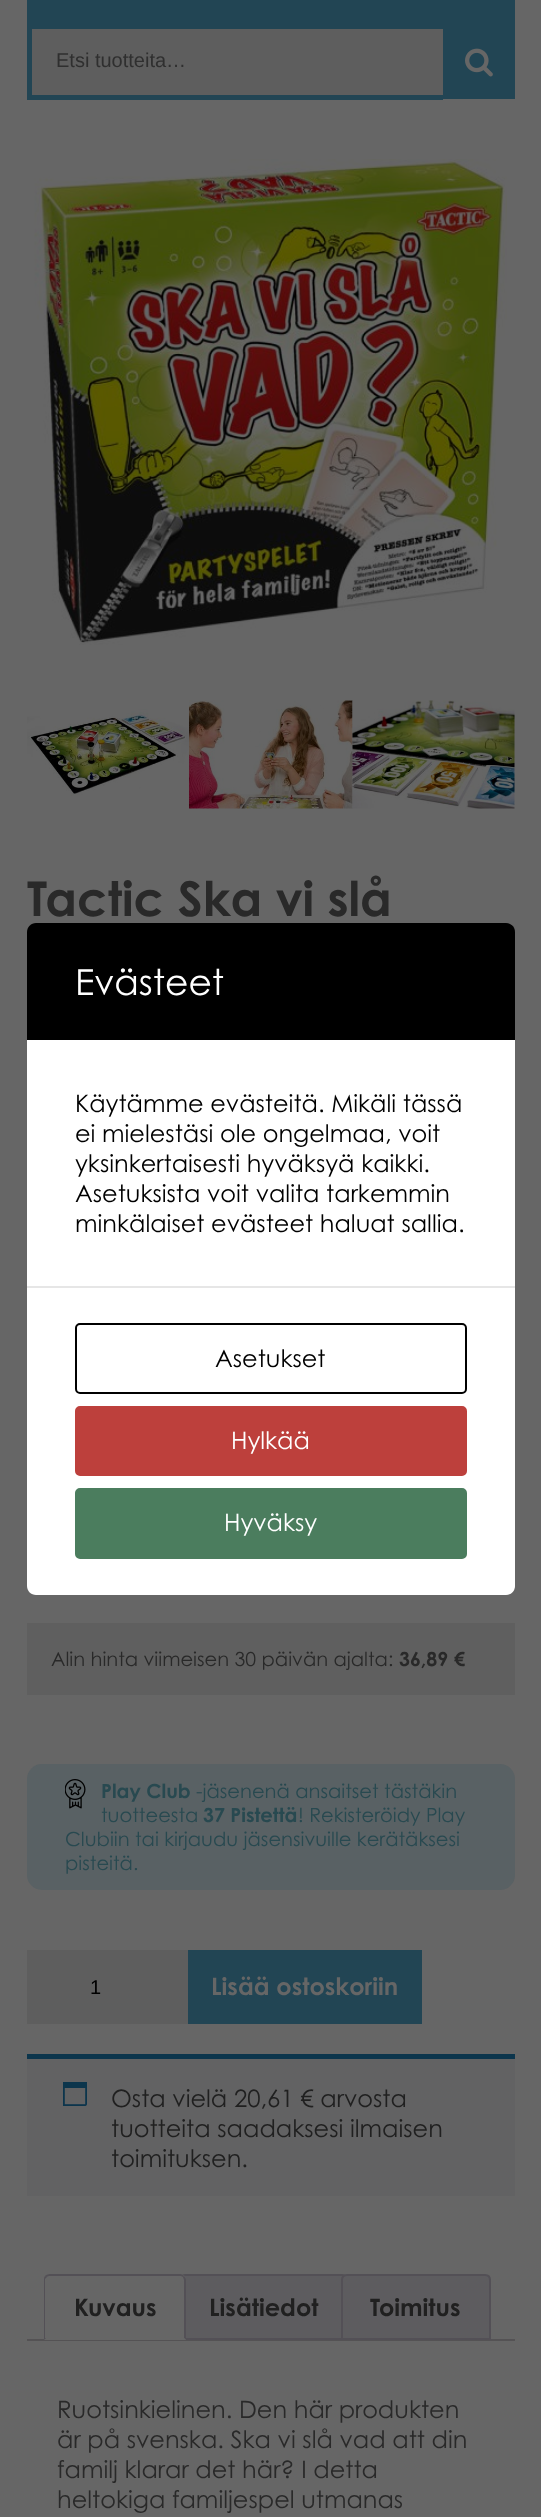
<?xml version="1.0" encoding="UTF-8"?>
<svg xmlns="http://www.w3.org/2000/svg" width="541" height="2517">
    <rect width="100%" height="100%" fill="#666666"/>
    <rect x="27" y="0" width="488" height="24" fill="#224554"/>
    <rect x="32" y="29" width="411" height="66" fill="#5E5E5E"/>
    <rect x="27" y="24" width="416" height="5" fill="#224554"/>
    <rect x="27" y="95" width="416" height="5" fill="#224554"/>
    <rect x="27" y="24" width="5" height="75" fill="#224554"/>
    <text x="56" y="67" font-family="Liberation Sans" font-size="20" fill="#2F2F2F">Etsi tuotteita…</text>
    <rect x="443" y="24" width="72" height="75" fill="#224554"/>
    <image x="465" y="48" width="28" height="29" href="img_01.png"/>
    <image x="34" y="159" width="473" height="486" href="img_02.png"/>
    <image x="27" y="709" width="162" height="87" href="img_03.png"/>
    <image x="189" y="700" width="164" height="109" href="img_04.png"/>
    <image x="352" y="700" width="163" height="109" href="img_05.png"/>
    <text x="27" y="916" font-family="Century Gothic" font-size="48" font-weight="700" fill="#292929">Tactic Ska vi slå</text>
    <rect x="27" y="1623" width="488" height="72" fill="#5F5F5F"/>
    <text x="51" y="1666" font-family="Century Gothic" font-size="19.5" fill="#292929">Alin hinta viimeisen 30 päivän ajalta:</text>
    <text x="399" y="1666" font-family="Century Gothic" font-size="19.5" font-weight="700" fill="#292929">36,89 €</text>
    <rect x="27" y="1764" width="488" height="126" rx="15" fill="#596164"/>
    <image x="65" y="1779" width="21" height="30" href="img_06.png"/>
    <text x="101" y="1798" font-family="Century Gothic" font-size="19.5" font-weight="700" fill="#284950">Play Club</text>
    <text x="196" y="1798" font-family="Century Gothic" font-size="19.5" fill="#284950">-jäsenenä ansaitset tästäkin</text>
    <text x="101" y="1822" font-family="Century Gothic" font-size="19.5" fill="#284950">tuotteesta</text>
    <text x="203" y="1822" font-family="Century Gothic" font-size="19.5" font-weight="700" fill="#284950">37 Pistettä</text>
    <text x="298" y="1822" font-family="Century Gothic" font-size="19.5" fill="#284950">! Rekisteröidy Play</text>
    <text font-family="Century Gothic" font-size="19.5" fill="#284950">
        <tspan x="65" y="1846">Clubiin tai kirjaudu jäsensivuille kerätäksesi</tspan>
        <tspan x="65" y="1870">pisteitä.</tspan>
    </text>
    <rect x="27" y="1950" width="161" height="74" fill="#5E5E5E"/>
    <text x="90" y="1994" font-family="Liberation Sans" font-size="20" fill="#000000">1</text>
    <rect x="188" y="1950" width="234" height="74" fill="#224554"/>
    <text x="211" y="1995" font-family="Century Gothic" font-size="24" font-weight="700" fill="#666666">Lisää ostoskoriin</text>
    <rect x="27" y="2059" width="488" height="137" fill="#626263"/>
    <rect x="27" y="2054" width="488" height="5" fill="#0C354C"/>
    <image x="63" y="2082" width="24" height="24" href="img_07.png"/>
    <text font-family="Century Gothic" font-size="24" fill="#202020">
        <tspan x="111" y="2107">Osta vielä 20,61 € arvosta</tspan>
        <tspan x="111" y="2137">tuotteita saadaksesi ilmaisen</tspan>
        <tspan x="111" y="2167">toimituksen.</tspan>
    </text>
    <rect x="27" y="2339" width="488" height="2" fill="#545254"/>
    <path d="M 185 2275 H 342 C 345 2275 347 2277 347 2280 V 2339 H 180 V 2280 C 180 2277 182 2275 185 2275 Z" fill="#5D5C5F" stroke="#535056" stroke-width="2"/>
    <path d="M 50 2274 H 180 C 183.5 2274 186 2276.5 186 2280 V 2340 H 44 V 2280 C 44 2276.5 46.5 2274 50 2274 Z" fill="#666666"/>
    <path d="M 50 2274 C 48 2274 46 2275 45 2276 L 47 2277 C 47 2276 49 2276 50 2276 H 180 C 181 2276 182 2276 183 2277 L 184 2276 C 183 2275 182 2274 180 2274 Z" fill="#535056"/>
    <path d="M 186 2340 V 2280 C 186 2278 185 2277 184 2276 L 183 2277 L 184 2280 V 2338 Z" fill="#535056"/>
    <path d="M 186 2340 L 184 2338 H 46 L 44 2340 Z" fill="#666666"/>
    <path d="M 45 2276 C 44 2277 44 2279 44 2280 V 2340 L 46 2338 H 45 V 2279 L 47 2277 Z" fill="#535056"/>
    <text x="74" y="2316" font-family="Century Gothic" font-size="24" font-weight="700" fill="#202020">Kuvaus</text>
    <text x="209" y="2316" font-family="Century Gothic" font-size="24" font-weight="700" fill="#202020">Lisätiedot</text>
    <path d="M 347 2275 H 485 C 488 2275 490 2277 490 2280 V 2339 H 342 V 2280 C 342 2277 344 2275 347 2275 Z" fill="#5D5C5F" stroke="#535056" stroke-width="2"/>
    <text x="370" y="2316" font-family="Century Gothic" font-size="24" font-weight="700" fill="#202020">Toimitus</text>
    <text font-family="Century Gothic" font-size="24" fill="#292929">
        <tspan x="57" y="2418">Ruotsinkielinen. Den här produkten</tspan>
        <tspan x="57" y="2448">är på svenska. Ska vi slå vad att din</tspan>
        <tspan x="57" y="2478">familj klarar det här? I detta</tspan>
        <tspan x="57" y="2508">heltokiga familjespel utmanas</tspan>
    </text>
    <path d="M 36 923 H 506 C 511 923 515 927 515 932 V 1040 H 27 V 932 C 27 927 31 923 36 923 Z" fill="#000000"/>
    <text x="75" y="995" font-family="Century Gothic" font-size="36" fill="#FFFFFF">Evästeet</text>
    <rect x="27" y="1040" width="488" height="246" fill="#FFFFFF"/>
    <text font-family="Century Gothic" font-size="24" fill="#000000">
        <tspan x="75" y="1112">Käytämme evästeitä. Mikäli tässä</tspan>
        <tspan x="75" y="1142">ei mielestäsi ole ongelmaa, voit</tspan>
        <tspan x="75" y="1172">yksinkertaisesti hyväksyä kaikki.</tspan>
        <tspan x="75" y="1202">Asetuksista voit valita tarkemmin</tspan>
        <tspan x="75" y="1232">minkälaiset evästeet haluat sallia.</tspan>
    </text>
    <path d="M 27 1286 H 515 V 1586 C 515 1591 511 1595 506 1595 H 36 C 31 1595 27 1591 27 1586 Z" fill="#FFFFFF"/>
    <rect x="27" y="1286" width="488" height="2" fill="#E6E6E6"/>
    <rect x="76" y="1324" width="390" height="69" rx="4" fill="none" stroke="#000000" stroke-width="2"/>
    <text x="215" y="1367" font-family="Century Gothic" font-size="24" fill="#000000">Asetukset</text>
    <rect x="76" y="1407" width="390" height="68" rx="4" fill="#BD403C" stroke="#BD403C" stroke-width="2"/>
    <text x="231" y="1449" font-family="Century Gothic" font-size="24" fill="#FFFFFF">Hylkää</text>
    <rect x="76" y="1489" width="390" height="69" rx="4" fill="#4B7D5E" stroke="#4B7D5E" stroke-width="2"/>
    <text x="224" y="1531" font-family="Century Gothic" font-size="24" fill="#FFFFFF">Hyväksy</text>
</svg>
